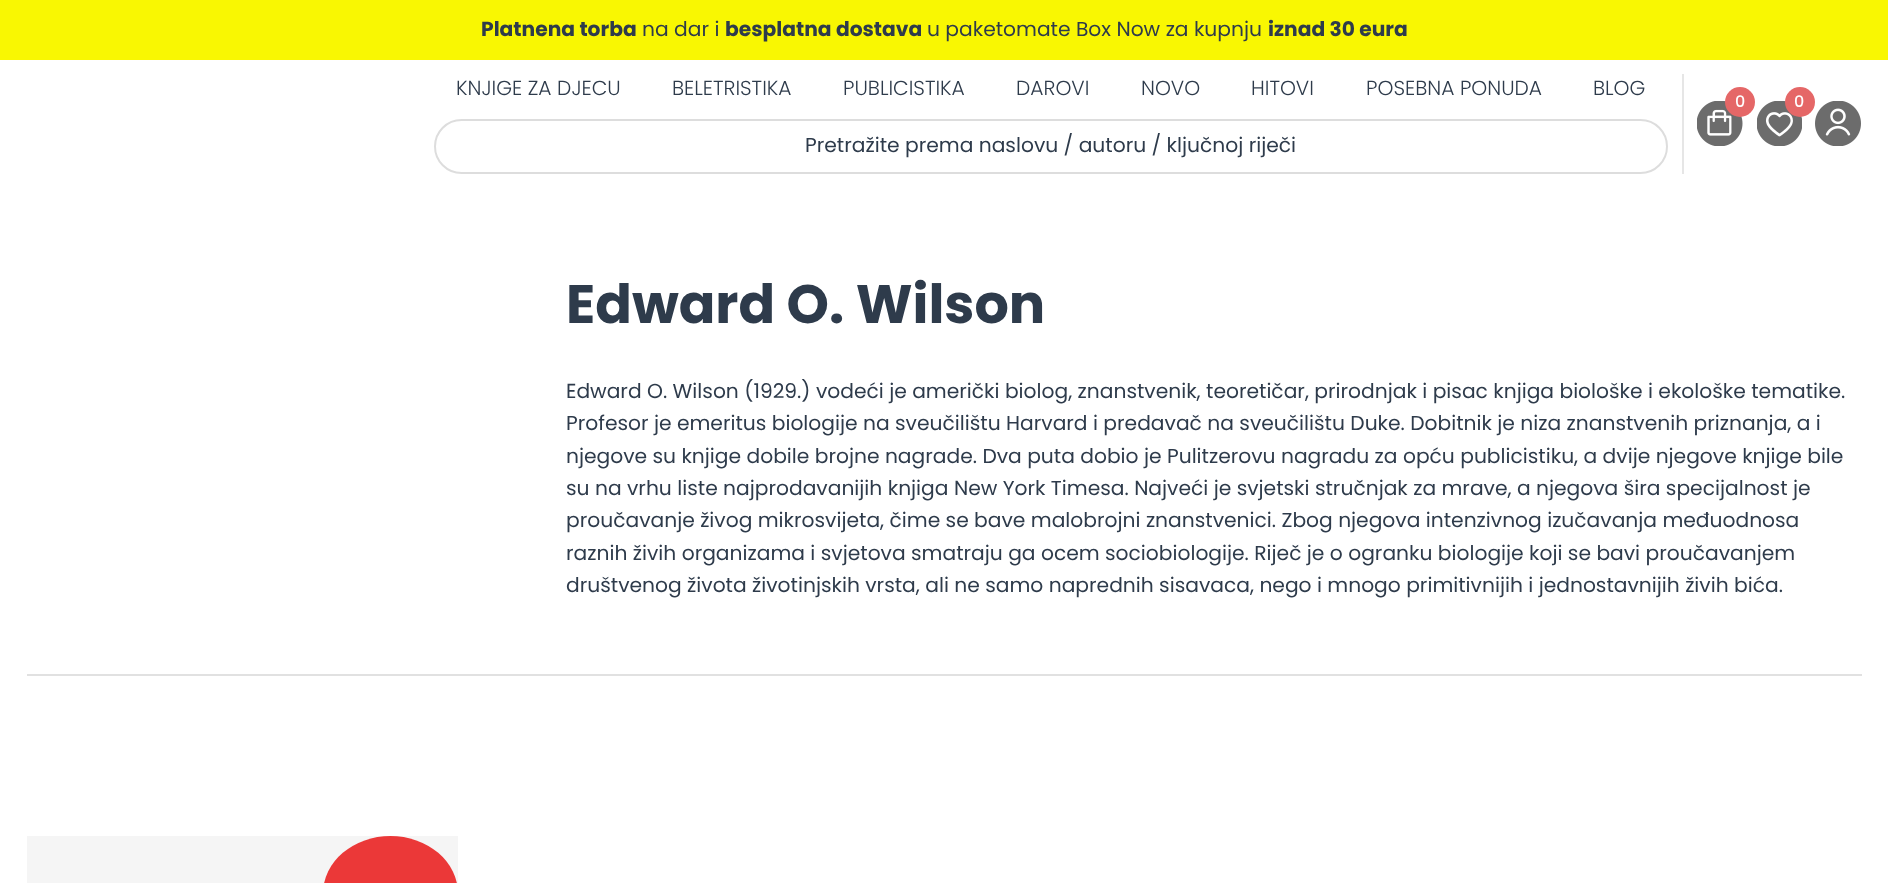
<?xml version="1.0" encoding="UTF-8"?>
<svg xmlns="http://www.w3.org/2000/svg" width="1888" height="883">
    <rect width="100%" height="100%" fill="#FFFFFF"/>
    <rect x="0" y="0" width="1888" height="60" fill="#F9F702"/>
    <text x="481" y="36" font-family="Poppins" font-size="20.25" font-weight="700" fill="#2E3B4B">Platnena torba</text>
    <text x="642" y="36" font-family="Poppins" font-size="20.25" fill="#2E3B4B">na dar i</text>
    <text x="725" y="36" font-family="Poppins" font-size="20.25" font-weight="700" fill="#2E3B4B">besplatna dostava</text>
    <text x="927" y="36" font-family="Poppins" font-size="20.25" fill="#2E3B4B">u paketomate Box Now za kupnju</text>
    <text x="1268" y="36" font-family="Poppins" font-size="20.25" font-weight="700" fill="#2E3B4B">iznad 30 eura</text>
    <rect x="1682" y="74" width="2" height="100" fill="#E6E6E6"/>
    <text x="456" y="95" font-family="Poppins" font-size="20.25" font-weight="300" fill="#2E3B4B">KNJIGE ZA DJECU</text>
    <text x="672" y="95" font-family="Poppins" font-size="20.25" font-weight="300" fill="#2E3B4B">BELETRISTIKA</text>
    <text x="843" y="95" font-family="Poppins" font-size="20.25" font-weight="300" fill="#2E3B4B">PUBLICISTIKA</text>
    <text x="1016" y="95" font-family="Poppins" font-size="20.25" font-weight="300" fill="#2E3B4B">DAROVI</text>
    <text x="1141" y="95" font-family="Poppins" font-size="20.25" font-weight="300" fill="#2E3B4B">NOVO</text>
    <text x="1251" y="95" font-family="Poppins" font-size="20.25" font-weight="300" fill="#2E3B4B">HITOVI</text>
    <text x="1366" y="95" font-family="Poppins" font-size="20.25" font-weight="300" fill="#2E3B4B">POSEBNA PONUDA</text>
    <text x="1593" y="95" font-family="Poppins" font-size="20.25" font-weight="300" fill="#2E3B4B">BLOG</text>
    <rect x="435" y="120" width="1232" height="53" rx="26.5" fill="none" stroke="#DDDDDD" stroke-width="2"/>
    <text x="805" y="152" font-family="Poppins" font-size="20.25" fill="#2E3B4B">Pretražite prema naslovu / autoru / ključnoj riječi</text>
    <image x="1697" y="101" width="46" height="45" href="img_01.png"/>
    <circle cx="1740" cy="102" r="15" fill="#E56767"/>
    <text x="1735" y="107" font-family="Poppins" font-size="16" font-weight="500" fill="#FFFFFF">0</text>
    <image x="1757" y="101" width="45" height="45" href="img_02.png"/>
    <circle cx="1800" cy="102" r="15" fill="#E56767"/>
    <text x="1794" y="107" font-family="Poppins" font-size="16" font-weight="500" fill="#FFFFFF">0</text>
    <image x="1815" y="101" width="46" height="45" href="img_03.png"/>
    <text x="566" y="323" font-family="Poppins" font-size="54" font-weight="700" fill="#2E3B4B">Edward O. Wilson</text>
    <text font-family="Poppins" font-size="20.25" fill="#2E3B4B">
        <tspan x="566" y="398">Edward O. Wilson (1929.) vodeći je američki biolog, znanstvenik, teoretičar, prirodnjak i pisac knjiga biološke i ekološke tematike.</tspan>
        <tspan x="566" y="430">Profesor je emeritus biologije na sveučilištu Harvard i predavač na sveučilištu Duke. Dobitnik je niza znanstvenih priznanja, a i</tspan>
        <tspan x="566" y="463">njegove su knjige dobile brojne nagrade. Dva puta dobio je Pulitzerovu nagradu za opću publicistiku, a dvije njegove knjige bile</tspan>
        <tspan x="566" y="495">su na vrhu liste najprodavanijih knjiga New York Timesa. Najveći je svjetski stručnjak za mrave, a njegova šira specijalnost je</tspan>
        <tspan x="566" y="527">proučavanje živog mikrosvijeta, čime se bave malobrojni znanstvenici. Zbog njegova intenzivnog izučavanja međuodnosa</tspan>
        <tspan x="566" y="560">raznih živih organizama i svjetova smatraju ga ocem sociobiologije. Riječ je o ogranku biologije koji se bavi proučavanjem</tspan>
        <tspan x="566" y="592">društvenog života životinjskih vrsta, ali ne samo naprednih sisavaca, nego i mnogo primitivnijih i jednostavnijih živih bića.</tspan>
    </text>
    <rect x="27" y="674" width="1835" height="2" fill="#E1E1E1"/>
    <rect x="27" y="836" width="431" height="47" fill="#F5F5F5"/>
    <rect x="323" y="836" width="135" height="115" rx="67.5" fill="#EB3838"/>
</svg>
